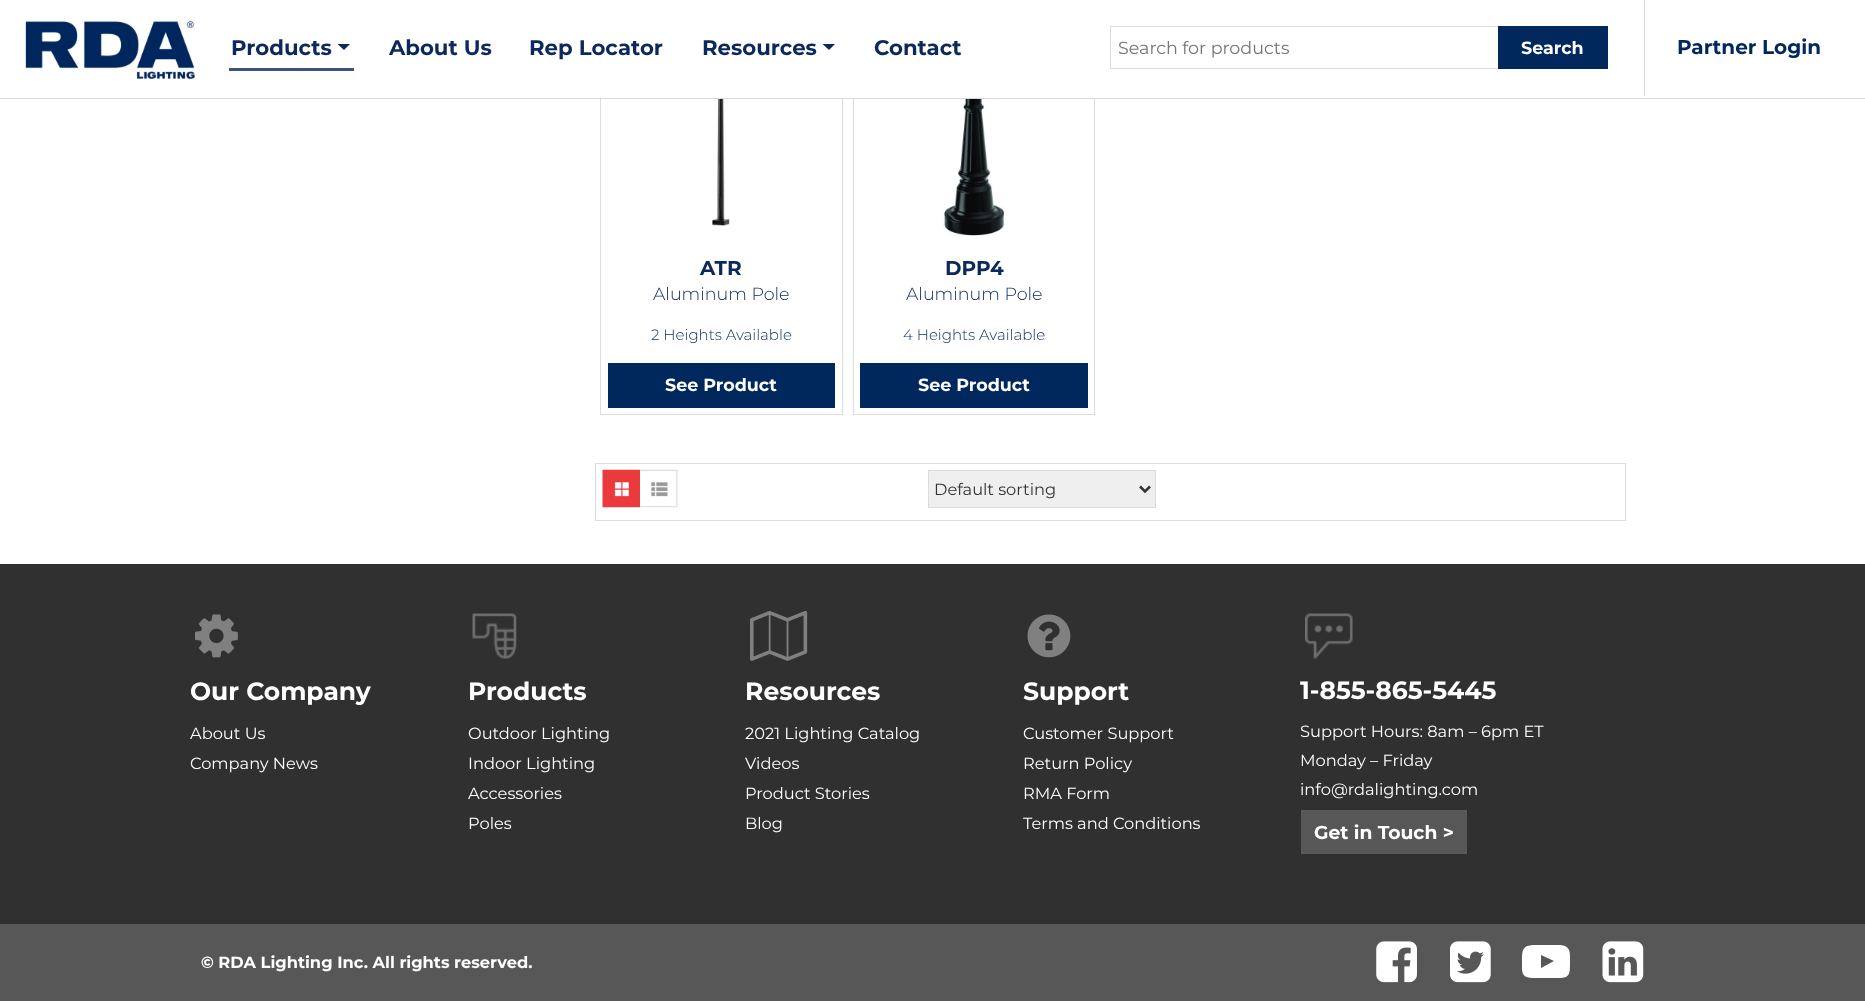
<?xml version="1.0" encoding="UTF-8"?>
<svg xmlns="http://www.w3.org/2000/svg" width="1865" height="1001">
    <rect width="100%" height="100%" fill="#FFFFFF"/>
    <rect x="600.5" y="9.5" width="242" height="405" fill="none" stroke="#DDDDDD"/>
    <rect x="853.5" y="9.5" width="241" height="405" fill="none" stroke="#DDDDDD"/>
    <rect x="600" y="9" width="495" height="89" fill="#FFFFFF"/>
    <rect x="0" y="98" width="1865" height="1" fill="#D8D8D8"/>
    <image x="25" y="21" width="170" height="58" href="img_01.png"/>
    <text x="231" y="55" font-family="Montserrat" font-size="21.25" font-weight="700" fill="#0C285D">Products</text>
    <path d="M 337.5 44 H 350 L 344 50 Z" fill="#0C285D"/>
    <rect x="229" y="68" width="125" height="3" fill="#3D537D"/>
    <text x="389" y="55" font-family="Montserrat" font-size="21.25" font-weight="700" fill="#0C285D">About Us</text>
    <text x="529" y="55" font-family="Montserrat" font-size="21.25" font-weight="700" fill="#0C285D">Rep Locator</text>
    <text x="702" y="55" font-family="Montserrat" font-size="21.25" font-weight="700" fill="#0C285D">Resources</text>
    <path d="M 822.5 44 H 835 L 829 50 Z" fill="#0C285D"/>
    <text x="874" y="55" font-family="Montserrat" font-size="21.25" font-weight="700" fill="#0C285D">Contact</text>
    <rect x="1110.5" y="26.5" width="388" height="42" fill="none" stroke="#DCDCDC"/>
    <text x="1118" y="54" font-family="Montserrat" font-size="17.5" fill="#757575">Search for products</text>
    <rect x="1498" y="26" width="110" height="43" fill="#00285D"/>
    <text x="1521" y="54" font-family="Montserrat" font-size="17.5" font-weight="700" fill="#FFFFFF">Search</text>
    <rect x="1644" y="0" width="1" height="96" fill="#D8D8D8"/>
    <text x="1677" y="54" font-family="Montserrat" font-size="20" font-weight="700" fill="#00285D">Partner Login</text>
    <image x="712" y="99" width="18" height="127" href="img_02.png"/>
    <text x="700" y="275" font-family="Montserrat" font-size="20" font-weight="700" fill="#0C285D">ATR</text>
    <text x="653" y="300" font-family="Montserrat" font-size="17.5" font-weight="300" fill="#0C285D">Aluminum Pole</text>
    <text x="651" y="340" font-family="Montserrat" font-size="15" font-weight="300" fill="#0C285D">2 Heights Available</text>
    <rect x="608" y="363" width="227" height="45" fill="#00285D"/>
    <text x="665" y="391" font-family="Montserrat" font-size="17.5" font-weight="700" fill="#FFFFFF">See Product</text>
    <image x="942" y="99" width="63" height="137" href="img_03.png"/>
    <text x="945" y="275" font-family="Montserrat" font-size="20" font-weight="700" fill="#0C285D">DPP4</text>
    <text x="906" y="300" font-family="Montserrat" font-size="17.5" font-weight="300" fill="#0C285D">Aluminum Pole</text>
    <text x="903" y="340" font-family="Montserrat" font-size="15" font-weight="300" fill="#0C285D">4 Heights Available</text>
    <rect x="860" y="363" width="228" height="45" fill="#00285D"/>
    <text x="918" y="391" font-family="Montserrat" font-size="17.5" font-weight="700" fill="#FFFFFF">See Product</text>
    <rect x="595.5" y="463.5" width="1030" height="57" fill="none" stroke="#DDDDDD"/>
    <image x="602" y="469" width="38" height="39" href="img_04.png"/>
    <image x="640" y="469" width="38" height="39" href="img_05.png"/>
    <rect x="928.5" y="470.5" width="227" height="37" fill="#EFEFEF" stroke="#DDDDDD"/>
    <path d="M 1140 486.5 L 1145 491.5 L 1150 486.5" fill="none" stroke="#333333" stroke-width="2.5"/>
    <text x="934" y="495" font-family="Montserrat" font-size="16.25" fill="#333333">Default sorting</text>
    <rect x="0" y="564" width="1865" height="360" fill="#303030"/>
    <image x="195" y="614" width="43" height="44" href="img_06.png"/>
    <text x="190" y="700" font-family="Montserrat" font-size="25" font-weight="700" fill="#FFFFFF">Our Company</text>
    <text font-family="Montserrat" font-size="16.25" fill="#FFFFFF">
        <tspan x="190" y="739">About Us</tspan>
        <tspan x="190" y="769">Company News</tspan>
    </text>
    <image x="472" y="613" width="45" height="46" href="img_07.png"/>
    <text x="468" y="700" font-family="Montserrat" font-size="25" font-weight="700" fill="#FFFFFF">Products</text>
    <text font-family="Montserrat" font-size="16.25" fill="#FFFFFF">
        <tspan x="468" y="739">Outdoor Lighting</tspan>
        <tspan x="468" y="769">Indoor Lighting</tspan>
        <tspan x="468" y="799">Accessories</tspan>
        <tspan x="468" y="829">Poles</tspan>
    </text>
    <image x="750" y="610" width="58" height="51" href="img_08.png"/>
    <text x="745" y="700" font-family="Montserrat" font-size="25" font-weight="700" fill="#FFFFFF">Resources</text>
    <text font-family="Montserrat" font-size="16.25" fill="#FFFFFF">
        <tspan x="745" y="739">2021 Lighting Catalog</tspan>
        <tspan x="745" y="769">Videos</tspan>
        <tspan x="745" y="799">Product Stories</tspan>
        <tspan x="745" y="829">Blog</tspan>
    </text>
    <image x="1027" y="614" width="44" height="44" href="img_09.png"/>
    <text x="1023" y="700" font-family="Montserrat" font-size="25" font-weight="700" fill="#FFFFFF">Support</text>
    <text font-family="Montserrat" font-size="16.25" fill="#FFFFFF">
        <tspan x="1023" y="739">Customer Support</tspan>
        <tspan x="1023" y="769">Return Policy</tspan>
        <tspan x="1023" y="799">RMA Form</tspan>
        <tspan x="1023" y="829">Terms and Conditions</tspan>
    </text>
    <image x="1305" y="613" width="48" height="46" href="img_10.png"/>
    <text x="1300" y="699" font-family="Montserrat" font-size="25" font-weight="700" fill="#FFFFFF">1-855-865-5445</text>
    <text font-family="Montserrat" font-size="16.25" fill="#FFFFFF">
        <tspan x="1300" y="737">Support Hours: 8am – 6pm ET</tspan>
        <tspan x="1300" y="766">Monday – Friday</tspan>
        <tspan x="1300" y="795">info@rdalighting.com</tspan>
    </text>
    <rect x="1301" y="810" width="166" height="44" fill="#575757"/>
    <text x="1314" y="839" font-family="Montserrat" font-size="18.75" font-weight="700" fill="#FFFFFF">Get in Touch &gt;</text>
    <rect x="0" y="924" width="1865" height="77" fill="#575757"/>
    <text x="201" y="968" font-family="Montserrat" font-size="16.25" font-weight="700" fill="#FFFFFF">© RDA Lighting Inc. All rights reserved.</text>
    <image x="1376" y="941" width="41" height="42" href="img_11.png"/>
    <image x="1450" y="941" width="41" height="42" href="img_12.png"/>
    <path d="M 1541 968 L 1554 961 L 1541 955 Z M 1546 945 H 1560 C 1571 946 1570 952 1570 962 C 1570 974 1570 978 1559 978 H 1533 C 1521 978 1522 972 1522 962 C 1522 950 1522 946 1533 945 Z" fill="#FFFFFF"/>
    <image x="1602" y="941" width="42" height="42" href="img_13.png"/>
</svg>
